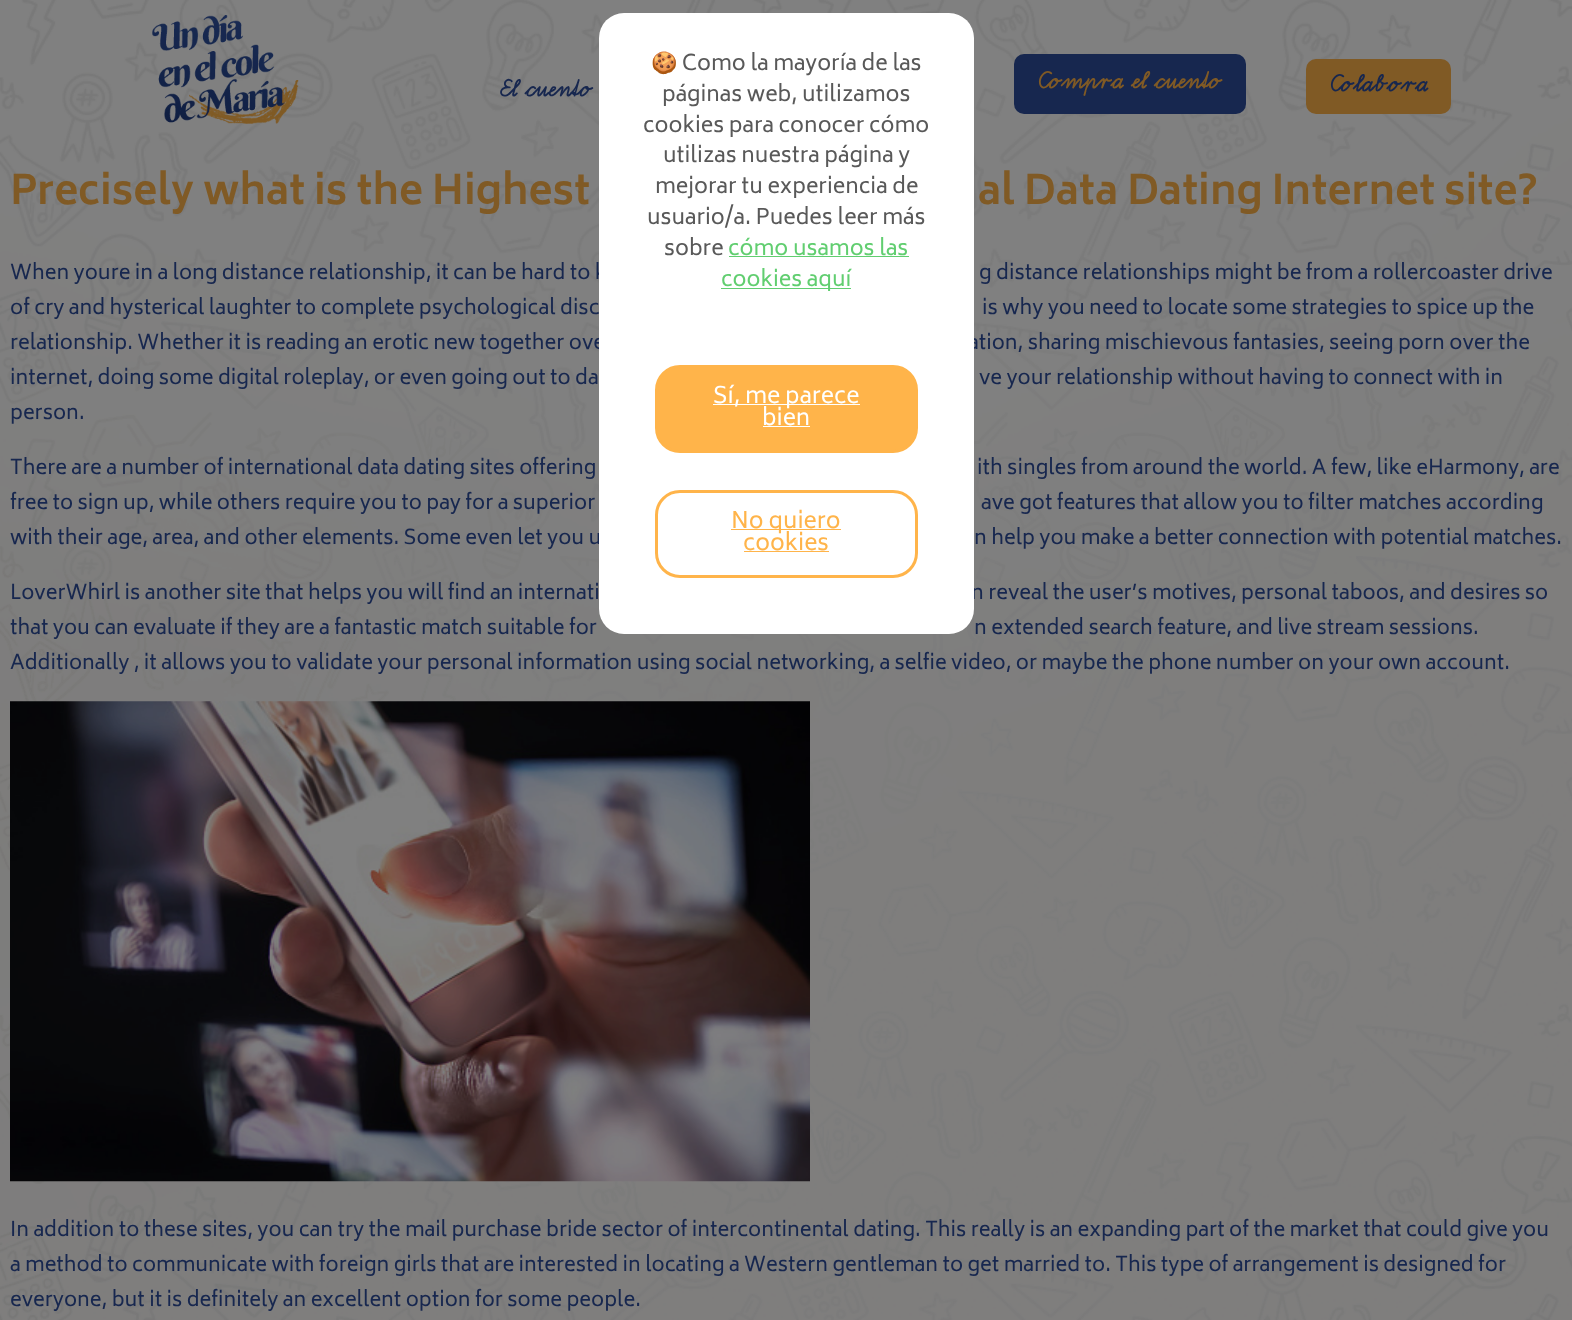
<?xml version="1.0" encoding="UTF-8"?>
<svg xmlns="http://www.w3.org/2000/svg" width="1572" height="1320">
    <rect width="100%" height="100%" fill="#808080"/>
    <image x="0" y="0" width="1572" height="1320" href="img_01.png"/>
    <text x="10" y="279" font-family="Biryani" font-size="20" fill="#17274F">When youre in a long distance relationship, it can be hard to k</text>
    <text x="10" y="349" font-family="Biryani" font-size="20" fill="#17274F">relationship. Whether it is reading an erotic new together ove</text>
    <text x="968" y="349" font-family="Biryani" font-size="20" fill="#17274F">ation, sharing mischievous fantasies, seeing porn over the</text>
    <text x="10" y="544" font-family="Biryani" font-size="20" fill="#17274F">with their age, area, and other elements. Some even let you u</text>
    <text x="971" y="599" font-family="Biryani" font-size="20" fill="#17274F">n reveal the user’s motives, personal taboos, and desires so</text>
    <rect x="599" y="13" width="375" height="621" rx="25" fill="#FFFFFF"/>
    <text x="651" y="70" font-family="Noto Color Emoji" font-size="21.25" fill="#595959">🍪</text>
    <text x="682" y="70" font-family="Biryani" font-size="21.25" fill="#595959">Como la mayoría de las</text>
    <text x="662" y="101" font-family="Biryani" font-size="21.25" fill="#595959">páginas web, utilizamos</text>
    <text x="643" y="132" font-family="Biryani" font-size="21.25" fill="#595959">cookies para conocer cómo</text>
    <text x="663" y="162" font-family="Biryani" font-size="21.25" fill="#595959">utilizas nuestra página y</text>
    <text x="655" y="193" font-family="Biryani" font-size="21.25" fill="#595959">mejorar tu experiencia de</text>
    <text x="647" y="224" font-family="Biryani" font-size="21.25" fill="#595959">usuario/a. Puedes leer más</text>
    <text x="664" y="255" font-family="Biryani" font-size="21.25" fill="#595959">sobre</text>
    <text x="728" y="255" font-family="Biryani" font-size="21.25" fill="#61CE70">cómo usamos las</text>
    <rect x="729" y="256" width="180" height="1" fill="#61CE70"/>
    <rect x="721" y="288" width="130" height="1" fill="#61CE70"/>
    <text x="721" y="286" font-family="Biryani" font-size="21.25" fill="#61CE70">cookies aquí</text>
    <rect x="656.5" y="366.5" width="260" height="85" rx="23.5" fill="#FFB44A" stroke="#FFB44A" stroke-width="3"/>
    <rect x="713" y="404" width="147" height="1" fill="#FFFFFF"/>
    <text x="713" y="403" font-family="Biryani" font-size="22.5" fill="#FFFFFF">Sí, me parece</text>
    <text x="762" y="425" font-family="Biryani" font-size="22.5" fill="#FFFFFF">bien</text>
    <rect x="763" y="426" width="47" height="1" fill="#FFFFFF"/>
    <rect x="656.5" y="491.5" width="260" height="85" rx="23.5" fill="none" stroke="#FFB44A" stroke-width="3"/>
    <rect x="731" y="529" width="110" height="1" fill="#FFB44A"/>
    <text x="731" y="528" font-family="Biryani" font-size="22.5" fill="#FFB44A">No quiero</text>
    <text x="743" y="550" font-family="Biryani" font-size="22.5" fill="#FFB44A">cookies</text>
    <rect x="744" y="551" width="85" height="1" fill="#FFB44A"/>
    <image x="152" y="15" width="147" height="109" href="img_02.png"/>
    <text x="500" y="96" font-family="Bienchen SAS" font-size="30" font-weight="700" fill="#17274F">El cuento</text>
    <rect x="1014" y="54" width="232" height="60" rx="10" fill="#17274F"/>
    <text x="1039" y="88" font-family="Bienchen SAS" font-size="30" font-weight="700" fill="#805A25">Compra el cuento</text>
    <rect x="1306" y="59" width="145" height="55" rx="10" fill="#805A25"/>
    <text x="1331" y="91" font-family="Bienchen SAS" font-size="30" font-weight="700" fill="#17274F">Colabora</text>
    <text x="10" y="204" font-family="Biryani" font-size="40" font-weight="700" fill="#805A25">Precisely what is the Highest</text>
    <text x="978" y="204" font-family="Biryani" font-size="40" font-weight="700" fill="#805A25">al Data Dating Internet site?</text>
    <text x="979" y="279" font-family="Biryani" font-size="20" fill="#17274F">g distance relationships might be from a rollercoaster drive</text>
    <text x="10" y="314" font-family="Biryani" font-size="20" fill="#17274F">of cry and hysterical laughter to complete psychological disc</text>
    <text x="982" y="314" font-family="Biryani" font-size="20" fill="#17274F">is why you need to locate some strategies to spice up the</text>
    <text x="10" y="384" font-family="Biryani" font-size="20" fill="#17274F">internet, doing some digital roleplay, or even going out to da</text>
    <text x="979" y="384" font-family="Biryani" font-size="20" fill="#17274F">ve your relationship without having to connect with in</text>
    <text x="10" y="419" font-family="Biryani" font-size="20" fill="#17274F">person.</text>
    <text x="10" y="474" font-family="Biryani" font-size="20" fill="#17274F">There are a number of international data dating sites offering</text>
    <text x="977" y="474" font-family="Biryani" font-size="20" fill="#17274F">ith singles from around the world. A few, like eHarmony, are</text>
    <text x="10" y="509" font-family="Biryani" font-size="20" fill="#17274F">free to sign up, while others require you to pay for a superior</text>
    <text x="981" y="509" font-family="Biryani" font-size="20" fill="#17274F">ave got features that allow you to filter matches according</text>
    <text x="974" y="544" font-family="Biryani" font-size="20" fill="#17274F">n help you make a better connection with potential matches.</text>
    <text font-family="Biryani" font-size="20" fill="#17274F">
        <tspan x="10" y="599">LoverWhirl is another site that helps you will find an internati</tspan>
        <tspan x="10" y="634">that you can evaluate if they are a fantastic match suitable for</tspan>
    </text>
    <text x="974" y="634" font-family="Biryani" font-size="20" fill="#17274F">n extended search feature, and live stream sessions.</text>
    <text x="10" y="669" font-family="Biryani" font-size="20" fill="#17274F">Additionally , it allows you to validate your personal information using social networking, a selfie video, or maybe the phone number on your own account.</text>
    <image x="10" y="701" width="800" height="481" href="img_03.png"/>
    <text font-family="Biryani" font-size="20" fill="#17274F">
        <tspan x="10" y="1236">In addition to these sites, you can try the mail purchase bride sector of intercontinental dating. This really is an expanding part of the market that could give you</tspan>
        <tspan x="10" y="1271">a method to communicate with foreign girls that are interested in locating a Western gentleman to get married to. This type of arrangement is designed for</tspan>
        <tspan x="10" y="1306">everyone, but it is definitely an excellent option for some people.</tspan>
    </text>
</svg>
